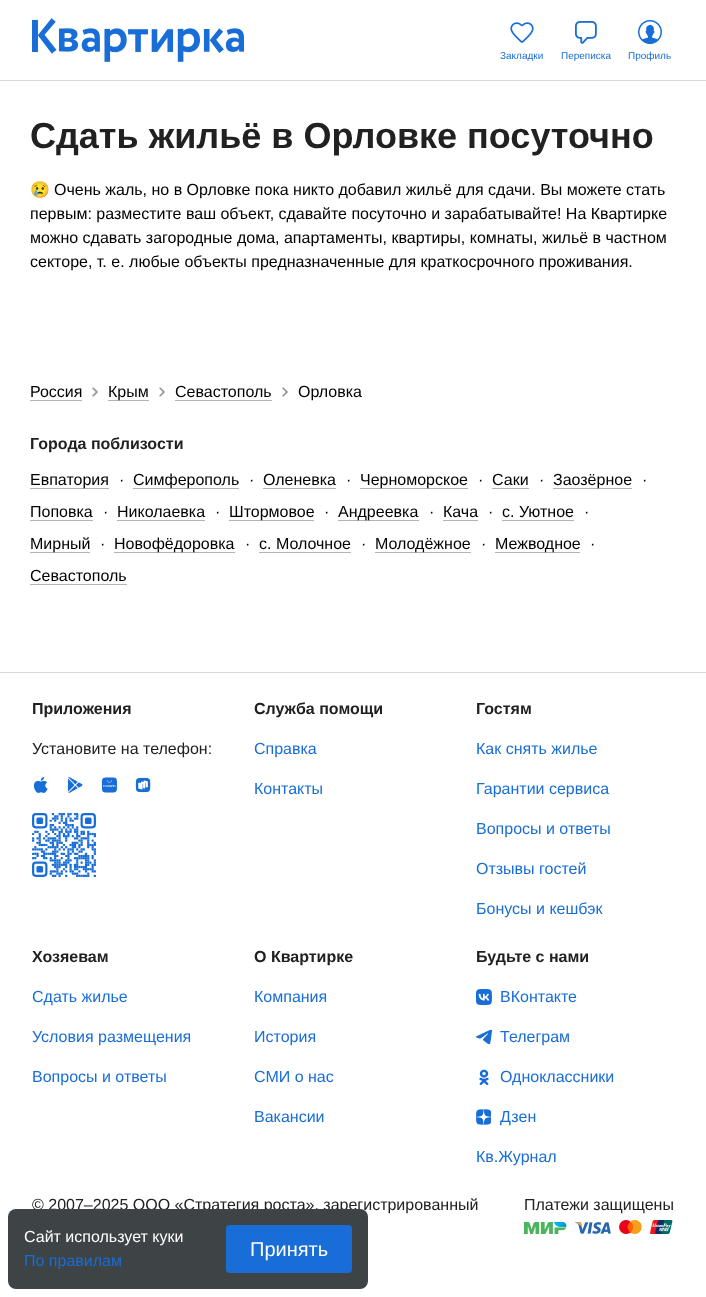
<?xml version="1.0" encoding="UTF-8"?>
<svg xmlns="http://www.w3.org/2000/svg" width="706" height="1297">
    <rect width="100%" height="100%" fill="#FFFFFF"/>
    <rect x="0" y="80" width="706" height="1" fill="#D7D7D7"/>
    <image x="32" y="18" width="212" height="44" href="img_01.png"/>
    <image x="510" y="22" width="24" height="21" href="img_02.png"/>
    <text x="500" y="59" font-family="Liberation Sans" font-size="10" fill="#186DD6">Закладки</text>
    <image x="575" y="21" width="22" height="23" href="img_03.png"/>
    <text x="561" y="59" font-family="Liberation Sans" font-size="10" fill="#186DD6">Переписка</text>
    <image x="638" y="20" width="24" height="24" href="img_04.png"/>
    <text x="628" y="59" font-family="Liberation Sans" font-size="10" fill="#186DD6">Профиль</text>
    <text x="30" y="148" font-family="Liberation Sans" font-size="36" font-weight="700" fill="#212121">Сдать жильё в Орловке посуточно</text>
    <text x="30" y="195" font-family="Noto Color Emoji" font-size="16" fill="#000000">😢</text>
    <text x="54" y="195" font-family="Liberation Sans" font-size="16" fill="#000000">Очень жаль, но в Орловке пока никто добавил жильё для сдачи. Вы можете стать</text>
    <text font-family="Liberation Sans" font-size="16" fill="#000000">
        <tspan x="30" y="219">первым: разместите ваш объект, сдавайте посуточно и зарабатывайте! На Квартирке</tspan>
        <tspan x="30" y="243">можно сдавать загородные дома, апартаменты, квартиры, комнаты, жильё в частном</tspan>
        <tspan x="30" y="267">секторе, т. е. любые объекты предназначенные для краткосрочного проживания.</tspan>
    </text>
    <image x="92" y="387" width="6" height="10" href="img_05.png"/>
    <text x="30" y="397" font-family="Liberation Sans" font-size="16" fill="#000000">Россия</text>
    <rect x="30" y="400" width="52" height="1" fill="#B3B3B3"/>
    <image x="159" y="387" width="6" height="10" href="img_05.png"/>
    <rect x="108" y="400" width="41" height="1" fill="#B3B3B3"/>
    <text x="108" y="397" font-family="Liberation Sans" font-size="16" fill="#000000">Крым</text>
    <image x="282" y="387" width="6" height="10" href="img_05.png"/>
    <text x="175" y="397" font-family="Liberation Sans" font-size="16" fill="#000000">Севастополь</text>
    <rect x="175" y="400" width="97" height="1" fill="#B3B3B3"/>
    <text x="298" y="397" font-family="Liberation Sans" font-size="16" fill="#000000">Орловка</text>
    <text x="30" y="449" font-family="Liberation Sans" font-size="16" font-weight="700" fill="#212121">Города поблизости</text>
    <rect x="30" y="488" width="79" height="1" fill="#B3B3B3"/>
    <text x="30" y="485" font-family="Liberation Sans" font-size="16" fill="#000000">Евпатория</text>
    <text x="119" y="485" font-family="Liberation Sans" font-size="16" fill="#000000">·</text>
    <rect x="133" y="488" width="106" height="1" fill="#B3B3B3"/>
    <text x="133" y="485" font-family="Liberation Sans" font-size="16" fill="#000000">Симферополь</text>
    <text x="249" y="485" font-family="Liberation Sans" font-size="16" fill="#000000">·</text>
    <text x="263" y="485" font-family="Liberation Sans" font-size="16" fill="#000000">Оленевка</text>
    <rect x="263" y="488" width="73" height="1" fill="#B3B3B3"/>
    <text x="346" y="485" font-family="Liberation Sans" font-size="16" fill="#000000">·</text>
    <rect x="360" y="488" width="108" height="1" fill="#B3B3B3"/>
    <text x="360" y="485" font-family="Liberation Sans" font-size="16" fill="#000000">Черноморское</text>
    <text x="478" y="485" font-family="Liberation Sans" font-size="16" fill="#000000">·</text>
    <text x="492" y="485" font-family="Liberation Sans" font-size="16" fill="#000000">Саки</text>
    <rect x="492" y="488" width="37" height="1" fill="#B3B3B3"/>
    <text x="539" y="485" font-family="Liberation Sans" font-size="16" fill="#000000">·</text>
    <rect x="553" y="488" width="79" height="1" fill="#B3B3B3"/>
    <text x="553" y="485" font-family="Liberation Sans" font-size="16" fill="#000000">Заозёрное</text>
    <text x="642" y="485" font-family="Liberation Sans" font-size="16" fill="#000000">·</text>
    <text x="30" y="517" font-family="Liberation Sans" font-size="16" fill="#000000">Поповка</text>
    <rect x="30" y="520" width="63" height="1" fill="#B3B3B3"/>
    <text x="103" y="517" font-family="Liberation Sans" font-size="16" fill="#000000">·</text>
    <text x="117" y="517" font-family="Liberation Sans" font-size="16" fill="#000000">Николаевка</text>
    <rect x="117" y="520" width="88" height="1" fill="#B3B3B3"/>
    <text x="215" y="517" font-family="Liberation Sans" font-size="16" fill="#000000">·</text>
    <rect x="229" y="520" width="85" height="1" fill="#B3B3B3"/>
    <text x="229" y="517" font-family="Liberation Sans" font-size="16" fill="#000000">Штормовое</text>
    <text x="324" y="517" font-family="Liberation Sans" font-size="16" fill="#000000">·</text>
    <rect x="338" y="520" width="81" height="1" fill="#B3B3B3"/>
    <text x="338" y="517" font-family="Liberation Sans" font-size="16" fill="#000000">Андреевка</text>
    <text x="429" y="517" font-family="Liberation Sans" font-size="16" fill="#000000">·</text>
    <text x="443" y="517" font-family="Liberation Sans" font-size="16" fill="#000000">Кача</text>
    <rect x="443" y="520" width="35" height="1" fill="#B3B3B3"/>
    <text x="488" y="517" font-family="Liberation Sans" font-size="16" fill="#000000">·</text>
    <text x="502" y="517" font-family="Liberation Sans" font-size="16" fill="#000000">с. Уютное</text>
    <rect x="502" y="520" width="72" height="1" fill="#B3B3B3"/>
    <text x="584" y="517" font-family="Liberation Sans" font-size="16" fill="#000000">·</text>
    <rect x="30" y="552" width="60" height="1" fill="#B3B3B3"/>
    <text x="30" y="549" font-family="Liberation Sans" font-size="16" fill="#000000">Мирный</text>
    <text x="100" y="549" font-family="Liberation Sans" font-size="16" fill="#000000">·</text>
    <rect x="114" y="552" width="121" height="1" fill="#B3B3B3"/>
    <text x="114" y="549" font-family="Liberation Sans" font-size="16" fill="#000000">Новофёдоровка</text>
    <text x="245" y="549" font-family="Liberation Sans" font-size="16" fill="#000000">·</text>
    <text x="259" y="549" font-family="Liberation Sans" font-size="16" fill="#000000">с. Молочное</text>
    <rect x="259" y="552" width="92" height="1" fill="#B3B3B3"/>
    <text x="361" y="549" font-family="Liberation Sans" font-size="16" fill="#000000">·</text>
    <rect x="375" y="552" width="96" height="1" fill="#B3B3B3"/>
    <text x="375" y="549" font-family="Liberation Sans" font-size="16" fill="#000000">Молодёжное</text>
    <text x="481" y="549" font-family="Liberation Sans" font-size="16" fill="#000000">·</text>
    <rect x="495" y="552" width="85" height="1" fill="#B3B3B3"/>
    <text x="495" y="549" font-family="Liberation Sans" font-size="16" fill="#000000">Межводное</text>
    <text x="590" y="549" font-family="Liberation Sans" font-size="16" fill="#000000">·</text>
    <text x="30" y="581" font-family="Liberation Sans" font-size="16" fill="#000000">Севастополь</text>
    <rect x="30" y="584" width="97" height="1" fill="#B3B3B3"/>
    <rect x="0" y="672" width="706" height="1" fill="#D7D7D7"/>
    <text x="32" y="714" font-family="Liberation Sans" font-size="16" font-weight="700" fill="#212121">Приложения</text>
    <text x="32" y="754" font-family="Liberation Sans" font-size="16" fill="#212121">Установите на телефон:</text>
    <image x="33" y="777" width="15" height="16" href="img_06.png"/>
    <image x="67" y="777" width="16" height="16" href="img_07.png"/>
    <image x="101" y="777" width="16" height="16" href="img_08.png"/>
    <image x="135" y="777" width="16" height="16" href="img_09.png"/>
    <image x="32" y="813" width="64" height="64" href="img_10.png"/>
    <text x="254" y="714" font-family="Liberation Sans" font-size="16" font-weight="700" fill="#212121">Служба помощи</text>
    <text x="254" y="754" font-family="Liberation Sans" font-size="16" fill="#186DD6">Справка</text>
    <text x="254" y="794" font-family="Liberation Sans" font-size="16" fill="#186DD6">Контакты</text>
    <text x="476" y="714" font-family="Liberation Sans" font-size="16" font-weight="700" fill="#212121">Гостям</text>
    <text x="476" y="754" font-family="Liberation Sans" font-size="16" fill="#186DD6">Как снять жилье</text>
    <text x="476" y="794" font-family="Liberation Sans" font-size="16" fill="#186DD6">Гарантии сервиса</text>
    <text x="476" y="834" font-family="Liberation Sans" font-size="16" fill="#186DD6">Вопросы и ответы</text>
    <text x="476" y="874" font-family="Liberation Sans" font-size="16" fill="#186DD6">Отзывы гостей</text>
    <text x="476" y="914" font-family="Liberation Sans" font-size="16" fill="#186DD6">Бонусы и кешбэк</text>
    <text x="32" y="962" font-family="Liberation Sans" font-size="16" font-weight="700" fill="#212121">Хозяевам</text>
    <text x="32" y="1002" font-family="Liberation Sans" font-size="16" fill="#186DD6">Сдать жилье</text>
    <text x="32" y="1042" font-family="Liberation Sans" font-size="16" fill="#186DD6">Условия размещения</text>
    <text x="32" y="1082" font-family="Liberation Sans" font-size="16" fill="#186DD6">Вопросы и ответы</text>
    <text x="254" y="962" font-family="Liberation Sans" font-size="16" font-weight="700" fill="#212121">О Квартирке</text>
    <text x="254" y="1002" font-family="Liberation Sans" font-size="16" fill="#186DD6">Компания</text>
    <text x="254" y="1042" font-family="Liberation Sans" font-size="16" fill="#186DD6">История</text>
    <text x="254" y="1082" font-family="Liberation Sans" font-size="16" fill="#186DD6">СМИ о нас</text>
    <text x="254" y="1122" font-family="Liberation Sans" font-size="16" fill="#186DD6">Вакансии</text>
    <text x="476" y="962" font-family="Liberation Sans" font-size="16" font-weight="700" fill="#212121">Будьте с нами</text>
    <image x="476" y="989" width="16" height="16" href="img_11.png"/>
    <text x="500" y="1002" font-family="Liberation Sans" font-size="16" fill="#186DD6">ВКонтакте</text>
    <image x="476" y="1029" width="16" height="16" href="img_12.png"/>
    <text x="500" y="1042" font-family="Liberation Sans" font-size="16" fill="#186DD6">Телеграм</text>
    <image x="479" y="1069" width="10" height="16" href="img_13.png"/>
    <text x="500" y="1082" font-family="Liberation Sans" font-size="16" fill="#186DD6">Одноклассники</text>
    <image x="476" y="1109" width="15" height="16" href="img_14.png"/>
    <text x="500" y="1122" font-family="Liberation Sans" font-size="16" fill="#186DD6">Дзен</text>
    <text x="476" y="1162" font-family="Liberation Sans" font-size="16" fill="#186DD6">Кв.Журнал</text>
    <text x="32" y="1210" font-family="Liberation Sans" font-size="16" fill="#212121">© 2007–2025 ООО «Стратегия роста», зарегистрированный</text>
    <text x="524" y="1210" font-family="Liberation Sans" font-size="16" fill="#212121">Платежи защищены</text>
    <image x="524" y="1222" width="43" height="12" href="img_15.png"/>
    <image x="575" y="1222" width="36" height="12" href="img_16.png"/>
    <image x="619" y="1220" width="23" height="14" href="img_17.png"/>
    <image x="650" y="1220" width="23" height="14" href="img_18.png"/>
    <rect x="8" y="1209" width="360" height="80" rx="8" fill="#3E4345"/>
    <text x="24" y="1242" font-family="Liberation Sans" font-size="16" fill="#FFFFFF">Сайт использует куки</text>
    <rect x="226" y="1225" width="126" height="48" rx="4" fill="#186DD6"/>
    <text x="250" y="1256" font-family="Liberation Sans" font-size="20" fill="#FFFFFF">Принять</text>
    <text x="24" y="1266" font-family="Liberation Sans" font-size="16" fill="#186DD6">По правилам</text>
</svg>
